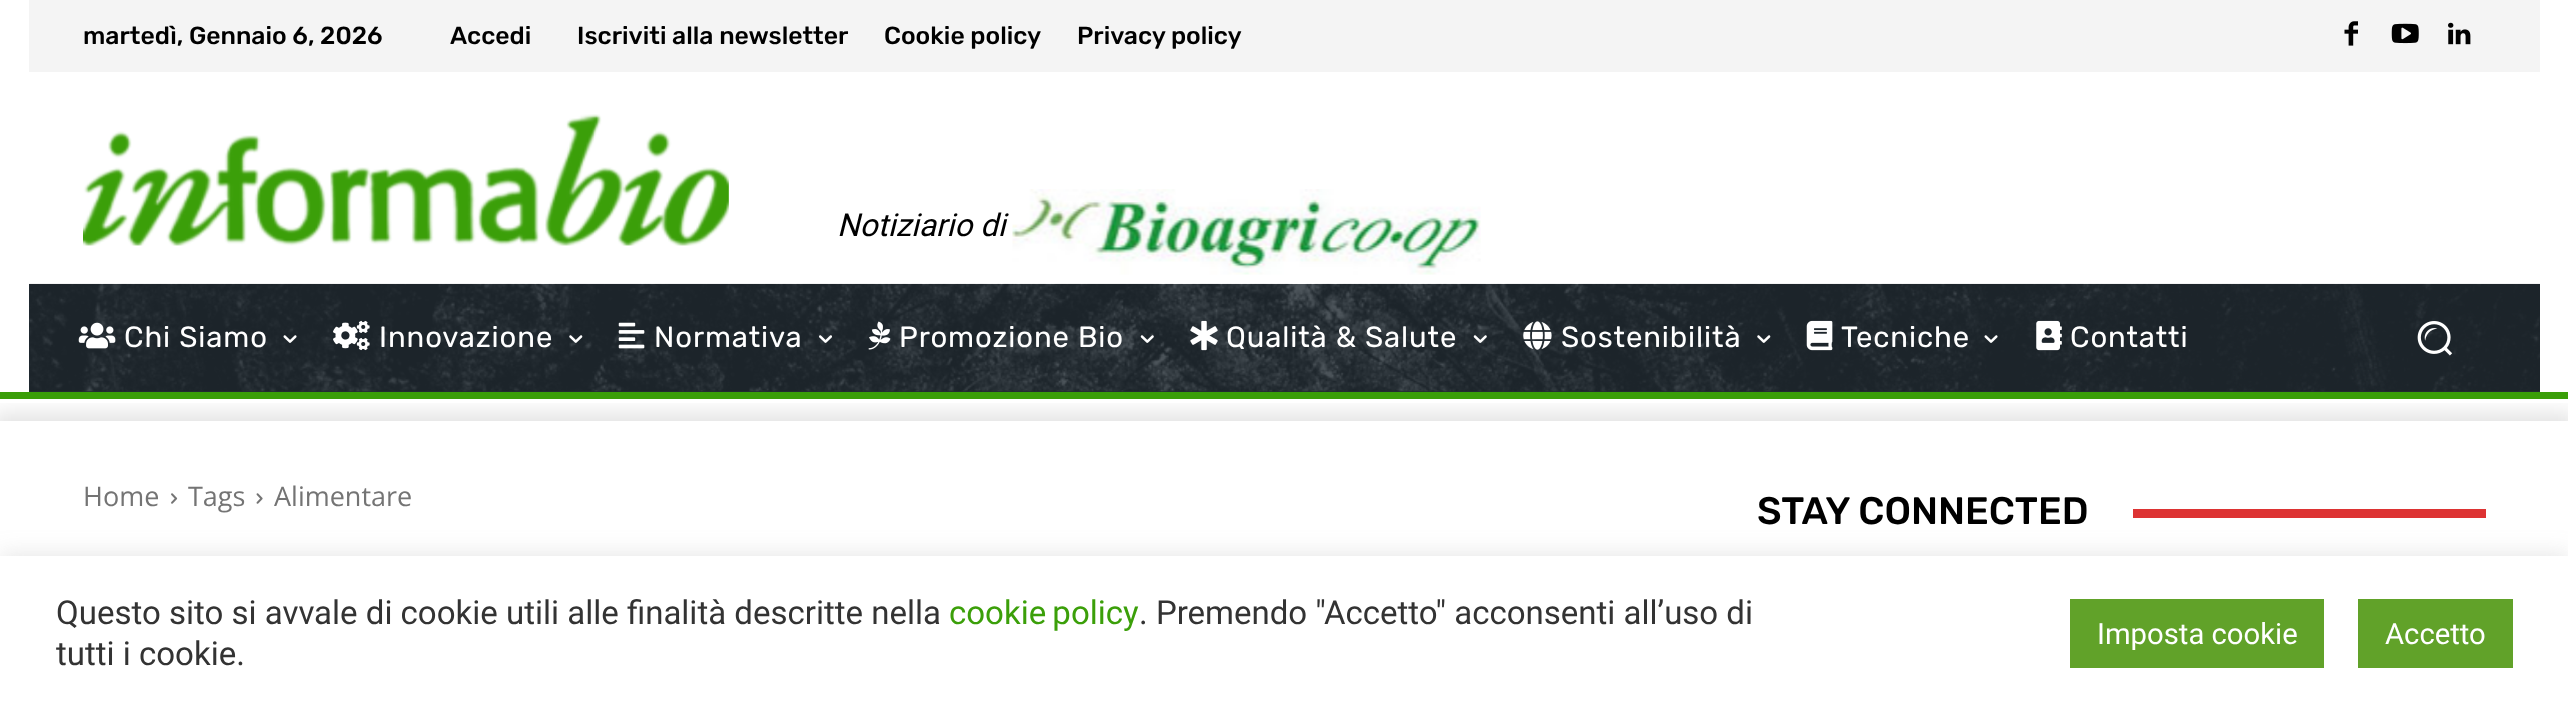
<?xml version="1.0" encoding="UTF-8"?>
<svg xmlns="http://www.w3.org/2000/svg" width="2568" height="711">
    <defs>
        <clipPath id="clip1"><rect x="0" y="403" width="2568" height="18"/></clipPath>
        <filter id="blur1" x="-50%" y="-200%" width="200%" height="500%"><feGaussianBlur stdDeviation="11"/></filter>
    </defs>
    <rect width="100%" height="100%" fill="#FFFFFF"/>
    <rect x="29" y="0" width="2511" height="72" fill="#F4F4F4"/>
    <text x="83" y="44" font-family="Rubik" font-size="24.75" font-weight="500" fill="#000000">martedì, Gennaio 6, 2026</text>
    <text x="450" y="44" font-family="Rubik" font-size="24.75" font-weight="500" fill="#000000">Accedi</text>
    <text x="577" y="44" font-family="Rubik" font-size="24.75" font-weight="500" fill="#000000">Iscriviti alla newsletter</text>
    <text x="884" y="44" font-family="Rubik" font-size="24.75" font-weight="500" fill="#000000">Cookie policy</text>
    <text x="1077" y="44" font-family="Rubik" font-size="24.75" font-weight="500" fill="#000000">Privacy policy</text>
    <image x="2344" y="21" width="14" height="25" href="img_01.png"/>
    <image x="2391" y="23" width="28" height="21" href="img_02.png"/>
    <image x="2448" y="22" width="23" height="23" href="img_03.png"/>
    <image x="83" y="114" width="646" height="132" href="img_04.png"/>
    <text x="837" y="236" font-family="Roboto" font-size="31.5" font-style="italic" fill="#000000">Notiziario di</text>
    <image x="1012" y="189" width="469" height="86" href="img_05.png"/>
    <g clip-path="url(#clip1)">
        <rect x="-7" y="414" width="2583" height="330" fill="#000000" fill-opacity="0.12" filter="url(#blur1)"/>
    </g>
    <rect x="29" y="284" width="2511" height="108" fill="#232D35"/>
    <image x="29" y="283" width="2511" height="109" href="img_06.png"/>
    <image x="78" y="322" width="38" height="27" href="img_07.png"/>
    <text x="124" y="347" font-family="Rubik" font-size="29.25" letter-spacing="0.9" fill="#FFFFFF">Chi Siamo</text>
    <image x="283" y="335" width="14" height="8" href="img_08.png"/>
    <image x="333" y="320" width="37" height="31" href="img_09.png"/>
    <text x="379" y="347" font-family="Rubik" font-size="29.25" letter-spacing="0.9" fill="#FFFFFF">Innovazione</text>
    <image x="569" y="335" width="14" height="8" href="img_10.png"/>
    <image x="618" y="322" width="27" height="27" href="img_11.png"/>
    <text x="654" y="347" font-family="Rubik" font-size="29.25" letter-spacing="0.9" fill="#FFFFFF">Normativa</text>
    <image x="819" y="335" width="13" height="8" href="img_12.png"/>
    <image x="868" y="321" width="23" height="29" href="img_13.png"/>
    <text x="899" y="347" font-family="Rubik" font-size="29.25" letter-spacing="0.9" fill="#FFFFFF">Promozione Bio</text>
    <image x="1140" y="335" width="14" height="8" href="img_14.png"/>
    <image x="1190" y="320" width="28" height="31" href="img_15.png"/>
    <text x="1226" y="347" font-family="Rubik" font-size="29.25" letter-spacing="0.9" fill="#FFFFFF">Qualità &amp; Salute</text>
    <image x="1473" y="335" width="14" height="8" href="img_16.png"/>
    <image x="1523" y="321" width="29" height="29" href="img_17.png"/>
    <text x="1561" y="347" font-family="Rubik" font-size="29.25" letter-spacing="0.9" fill="#FFFFFF">Sostenibilità</text>
    <image x="1757" y="335" width="14" height="8" href="img_18.png"/>
    <image x="1806" y="320" width="27" height="31" href="img_19.png"/>
    <text x="1841" y="347" font-family="Rubik" font-size="29.25" letter-spacing="0.9" fill="#FFFFFF">Tecniche</text>
    <image x="1984" y="335" width="14" height="8" href="img_20.png"/>
    <image x="2036" y="320" width="26" height="31" href="img_21.png"/>
    <text x="2070" y="347" font-family="Rubik" font-size="29.25" letter-spacing="0.9" fill="#FFFFFF">Contatti</text>
    <image x="2417" y="321" width="36" height="35" href="img_22.png"/>
    <rect x="0" y="392" width="2568" height="7" fill="#3A9E08"/>
    <text x="83" y="506" font-family="Open Sans" font-size="27" fill="#747474">Home</text>
    <image x="171" y="493" width="7" height="11" href="img_23.png"/>
    <text x="188" y="506" font-family="Open Sans" font-size="27" fill="#747474">Tags</text>
    <image x="256" y="493" width="7" height="11" href="img_24.png"/>
    <text x="274" y="506" font-family="Open Sans" font-size="27" fill="#747474">Alimentare</text>
    <text x="1757" y="524" font-family="Rubik" font-size="38.25" font-weight="500" fill="#000000">STAY CONNECTED</text>
    <rect x="2133" y="509" width="353" height="9" fill="#DD3333"/>
    <rect x="0" y="554" width="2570" height="155" fill="#ACABAB" fill-opacity="0.3" filter="url(#blur1)"/>
    <rect x="0" y="556" width="2568" height="155" fill="#FFFFFF"/>
    <text x="56" y="624" font-family="Roboto" font-size="33" fill="#333333">Questo sito si avvale di cookie utili alle finalità descritte nella</text>
    <text x="949" y="624" word-spacing="-2" font-family="Roboto" font-size="33" fill="#3B9F09">cookie policy</text>
    <text x="1139" y="624" font-family="Roboto" font-size="33" fill="#333333">. Premendo "Accetto" acconsenti all’uso di</text>
    <text x="56" y="665" font-family="Roboto" font-size="33" fill="#333333">tutti i cookie.</text>
    <rect x="2070" y="599" width="254" height="69" fill="#61A229"/>
    <text x="2097" y="644" font-family="Roboto" font-size="29.25" fill="#FFFFFF">Imposta cookie</text>
    <rect x="2358" y="599" width="155" height="69" fill="#61A229"/>
    <text x="2385" y="644" font-family="Roboto" font-size="29.25" fill="#FFFFFF">Accetto</text>
</svg>
